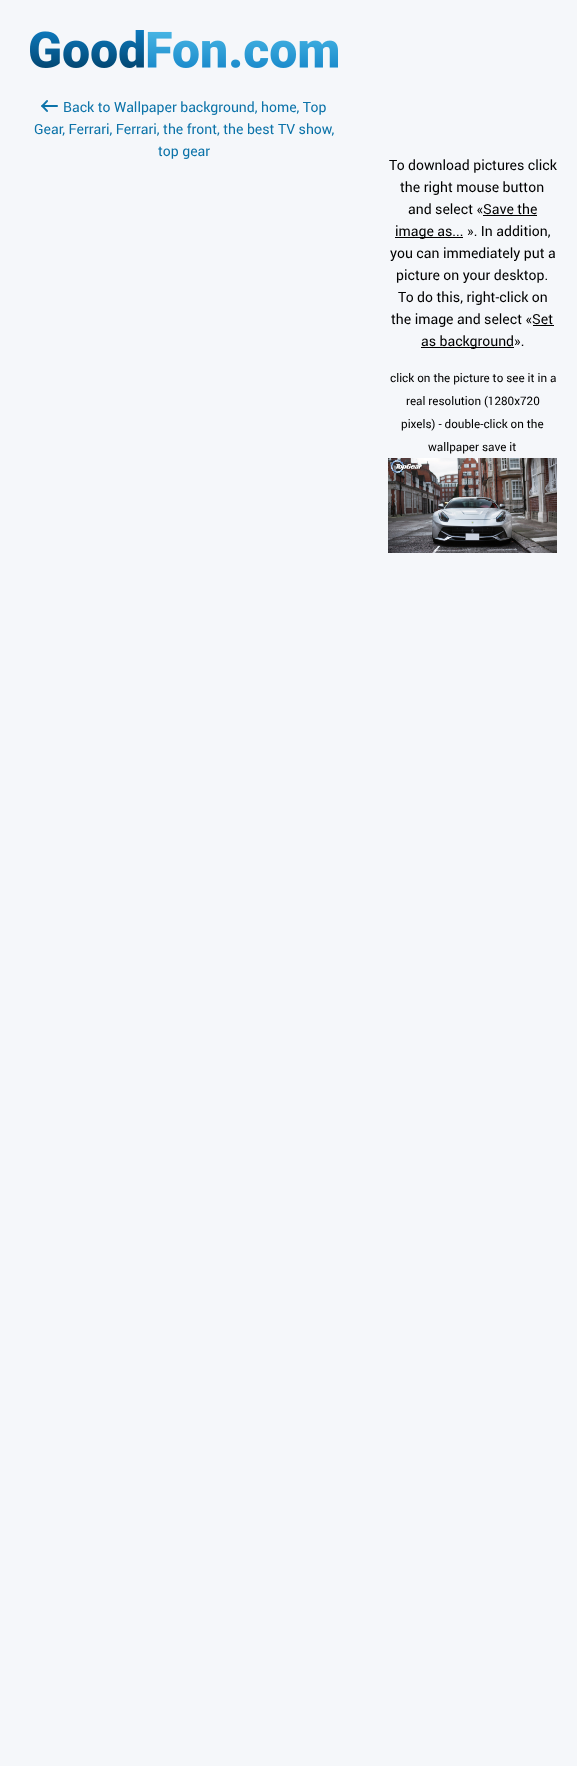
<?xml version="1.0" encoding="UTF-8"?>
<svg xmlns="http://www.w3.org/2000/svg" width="577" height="1766">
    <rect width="100%" height="100%" fill="#F5F7FA"/>
    <image x="30" y="30" width="308" height="38" href="img_01.png"/>
    <image x="41" y="100" width="17" height="12" href="img_02.png"/>
    <text x="63" y="112" font-family="Roboto" font-size="14" fill="#0C73A9">Back to Wallpaper background, home, Top</text>
    <text x="34" y="134" font-family="Roboto" font-size="14" fill="#0C73A9">Gear, Ferrari, Ferrari, the front, the best TV show,</text>
    <text x="158" y="156" font-family="Roboto" font-size="14" fill="#0C73A9">top gear</text>
    <text x="389" y="170" font-family="Roboto" font-size="14" fill="#000000">To download pictures click</text>
    <text x="400" y="192" font-family="Roboto" font-size="14" fill="#000000">the right mouse button</text>
    <text x="408" y="214" font-family="Roboto" font-size="14" fill="#000000">and select «Save the</text>
    <rect x="395" y="237" width="68" height="1" fill="#000000"/>
    <text x="395" y="236" font-family="Roboto" font-size="14" fill="#000000">image as... ». In addition,</text>
    <rect x="483" y="215" width="54" height="1" fill="#000000"/>
    <text x="390" y="258" font-family="Roboto" font-size="14" fill="#000000">you can immediately put a</text>
    <text x="396" y="280" font-family="Roboto" font-size="14" fill="#000000">picture on your desktop.</text>
    <text x="398" y="302" font-family="Roboto" font-size="14" fill="#000000">To do this, right-click on</text>
    <text x="391" y="324" font-family="Roboto" font-size="14" fill="#000000">the image and select «Set</text>
    <rect x="421" y="347" width="93" height="1" fill="#000000"/>
    <text x="421" y="346" font-family="Roboto" font-size="14" fill="#000000">as background».</text>
    <rect x="533" y="325" width="21" height="1" fill="#000000"/>
    <text x="390" y="382" font-family="Roboto" font-size="11.7" fill="#000000">click on the picture to see it in a</text>
    <text x="406" y="405" font-family="Roboto" font-size="11.7" fill="#000000">real resolution (1280x720</text>
    <text x="401" y="428" font-family="Roboto" font-size="11.7" fill="#000000">pixels) - double-click on the</text>
    <text x="428" y="451" font-family="Roboto" font-size="11.7" fill="#000000">wallpaper save it</text>
    <image x="388" y="458" width="169" height="95" href="img_03.png"/>
</svg>
